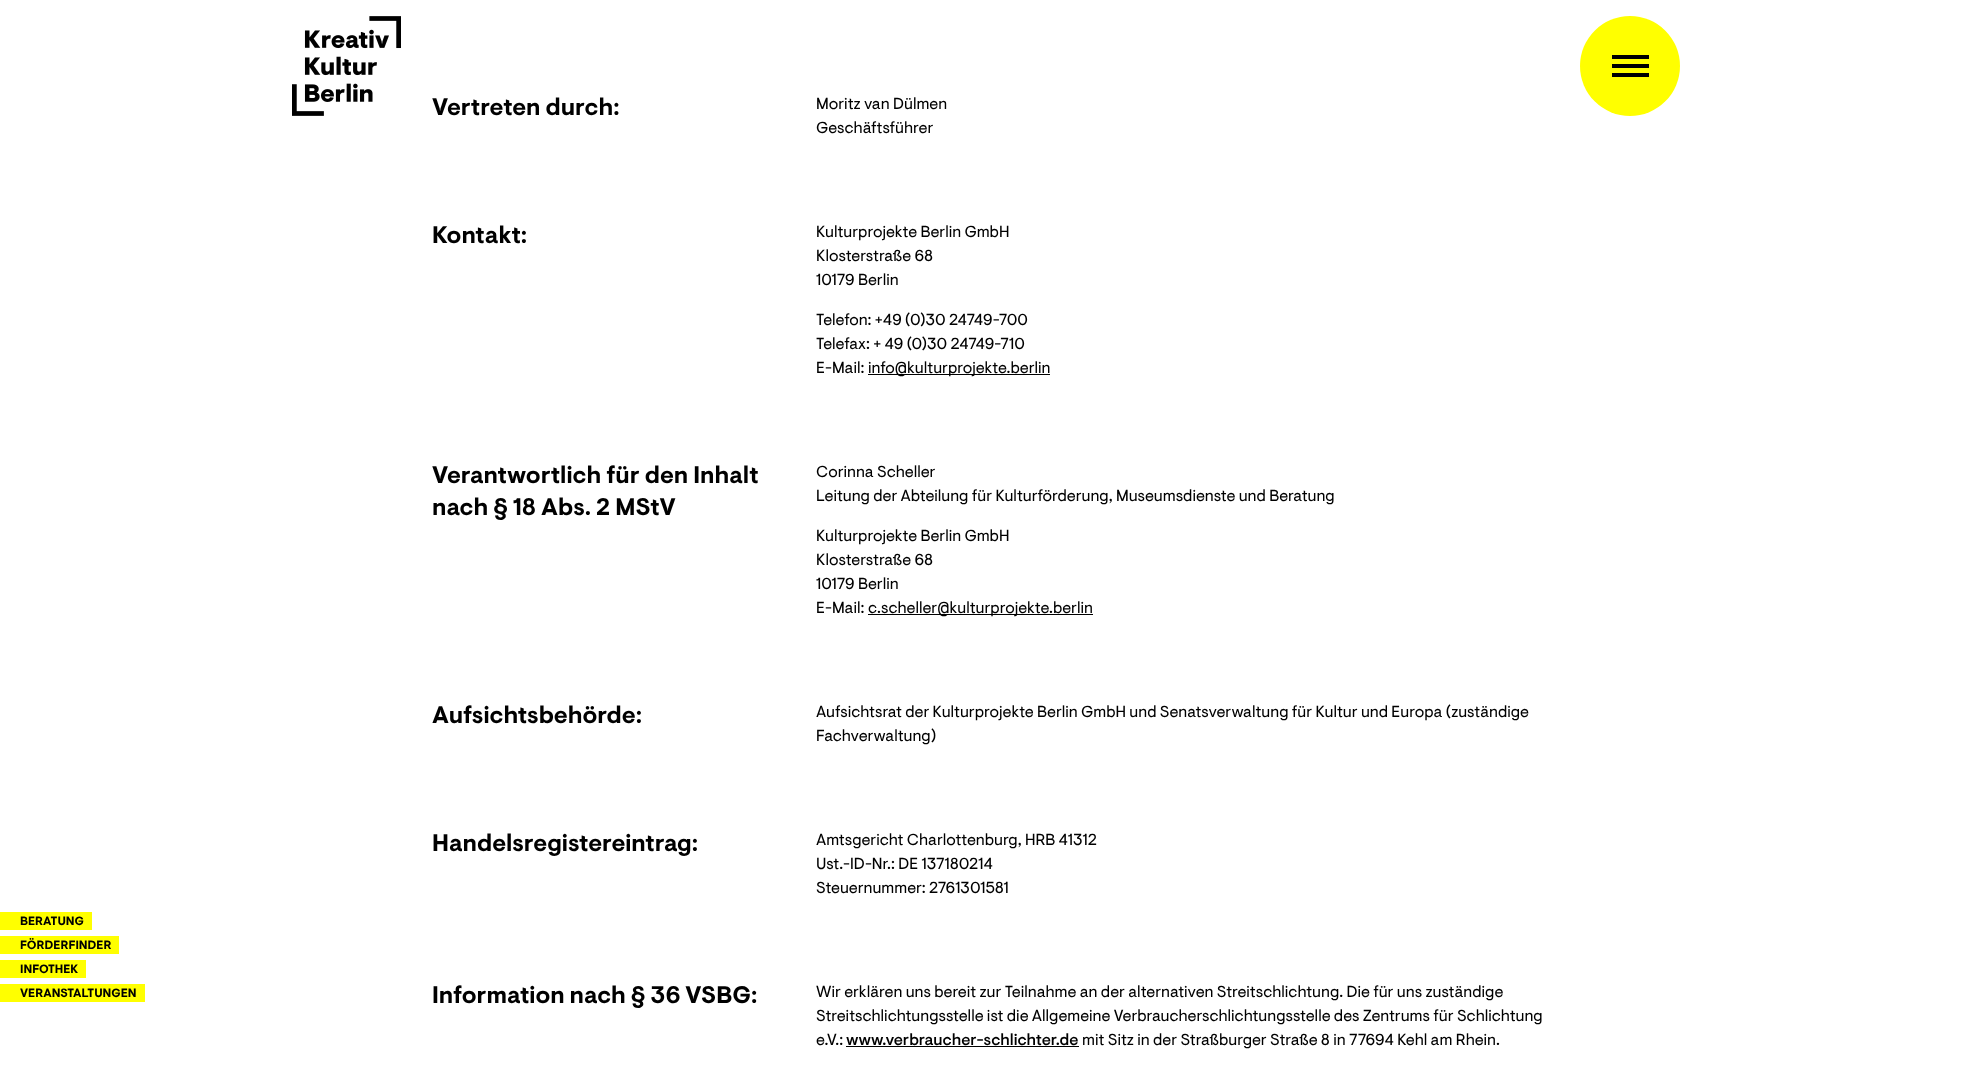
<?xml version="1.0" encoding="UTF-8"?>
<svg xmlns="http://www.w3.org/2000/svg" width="1980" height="1092">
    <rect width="100%" height="100%" fill="#FFFFFF"/>
    <image x="292" y="16" width="109" height="100" href="img_01.png"/>
    <circle cx="1630" cy="66" r="50" fill="#FFFF00"/>
    <rect x="1612" y="64" width="37" height="4" fill="#000000"/>
    <rect x="1612" y="55" width="37" height="4" fill="#000000"/>
    <rect x="1612" y="73" width="37" height="4" fill="#000000"/>
    <rect x="0" y="912" width="92" height="18" fill="#FFFF00"/>
    <text x="20" y="925" font-family="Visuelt" font-size="12" font-weight="700" fill="#000000">BERATUNG</text>
    <rect x="0" y="936" width="119" height="18" fill="#FFFF00"/>
    <text x="20" y="949" font-family="Visuelt" font-size="12" font-weight="700" fill="#000000">FÖRDERFINDER</text>
    <rect x="0" y="960" width="86" height="18" fill="#FFFF00"/>
    <text x="20" y="973" font-family="Visuelt" font-size="12" font-weight="700" fill="#000000">INFOTHEK</text>
    <rect x="0" y="984" width="145" height="18" fill="#FFFF00"/>
    <text x="20" y="997" font-family="Visuelt" font-size="12" font-weight="700" fill="#000000">VERANSTALTUNGEN</text>
    <text x="432" y="115" font-family="Visuelt" font-size="24" font-weight="700" fill="#000000">Vertreten durch:</text>
    <text font-family="Visuelt" font-size="16" fill="#000000">
        <tspan x="816" y="109">Moritz van Dülmen</tspan>
        <tspan x="816" y="133">Geschäftsführer</tspan>
    </text>
    <text x="432" y="243" font-family="Visuelt" font-size="24" font-weight="700" fill="#000000">Kontakt:</text>
    <text font-family="Visuelt" font-size="16" fill="#000000">
        <tspan x="816" y="237">Kulturprojekte Berlin GmbH</tspan>
        <tspan x="816" y="261">Klosterstraße 68</tspan>
        <tspan x="816" y="285">10179 Berlin</tspan>
    </text>
    <text font-family="Visuelt" font-size="16" fill="#000000">
        <tspan x="816" y="325">Telefon: +49 (0)30 24749-700</tspan>
        <tspan x="816" y="349">Telefax: + 49 (0)30 24749-710</tspan>
        <tspan x="816" y="373">E-Mail:</tspan>
    </text>
    <rect x="868" y="374" width="182" height="1" fill="#000000"/>
    <text x="868" y="373" font-family="Visuelt" font-size="16" fill="#000000">info@kulturprojekte.berlin</text>
    <text font-family="Visuelt" font-size="24" font-weight="700" fill="#000000">
        <tspan x="432" y="483">Verantwortlich für den Inhalt</tspan>
        <tspan x="432" y="515">nach § 18 Abs. 2 MStV</tspan>
    </text>
    <text font-family="Visuelt" font-size="16" fill="#000000">
        <tspan x="816" y="477">Corinna Scheller</tspan>
        <tspan x="816" y="501">Leitung der Abteilung für Kulturförderung, Museumsdienste und Beratung</tspan>
    </text>
    <text font-family="Visuelt" font-size="16" fill="#000000">
        <tspan x="816" y="541">Kulturprojekte Berlin GmbH</tspan>
        <tspan x="816" y="565">Klosterstraße 68</tspan>
        <tspan x="816" y="589">10179 Berlin</tspan>
        <tspan x="816" y="613">E-Mail:</tspan>
    </text>
    <rect x="868" y="614" width="225" height="1" fill="#000000"/>
    <text x="868" y="613" font-family="Visuelt" font-size="16" fill="#000000">c.scheller@kulturprojekte.berlin</text>
    <text x="432" y="723" font-family="Visuelt" font-size="24" font-weight="700" fill="#000000">Aufsichtsbehörde:</text>
    <text font-family="Visuelt" font-size="16" fill="#000000">
        <tspan x="816" y="717">Aufsichtsrat der Kulturprojekte Berlin GmbH und Senatsverwaltung für Kultur und Europa (zuständige</tspan>
        <tspan x="816" y="741">Fachverwaltung)</tspan>
    </text>
    <text x="432" y="851" font-family="Visuelt" font-size="24" font-weight="700" fill="#000000">Handelsregistereintrag:</text>
    <text font-family="Visuelt" font-size="16" fill="#000000">
        <tspan x="816" y="845">Amtsgericht Charlottenburg, HRB 41312</tspan>
        <tspan x="816" y="869">Ust.-ID-Nr.: DE 137180214</tspan>
        <tspan x="816" y="893">Steuernummer: 2761301581</tspan>
    </text>
    <text x="432" y="1003" font-family="Visuelt" font-size="24" font-weight="700" fill="#000000">Information nach § 36 VSBG:</text>
    <text font-family="Visuelt" font-size="16" fill="#000000">
        <tspan x="816" y="997">Wir erklären uns bereit zur Teilnahme an der alternativen Streitschlichtung. Die für uns zuständige</tspan>
        <tspan x="816" y="1021">Streitschlichtungsstelle ist die Allgemeine Verbraucherschlichtungsstelle des Zentrums für Schlichtung</tspan>
        <tspan x="816" y="1045">e.V.:</tspan>
    </text>
    <text x="846" y="1045" font-family="Visuelt" font-size="16" font-weight="500" fill="#000000">www.verbraucher-schlichter.de</text>
    <rect x="846" y="1046" width="233" height="1" fill="#000000"/>
    <text x="1082" y="1045" font-family="Visuelt" font-size="16" fill="#000000">mit Sitz in der Straßburger Straße 8 in 77694 Kehl am Rhein.</text>
</svg>
